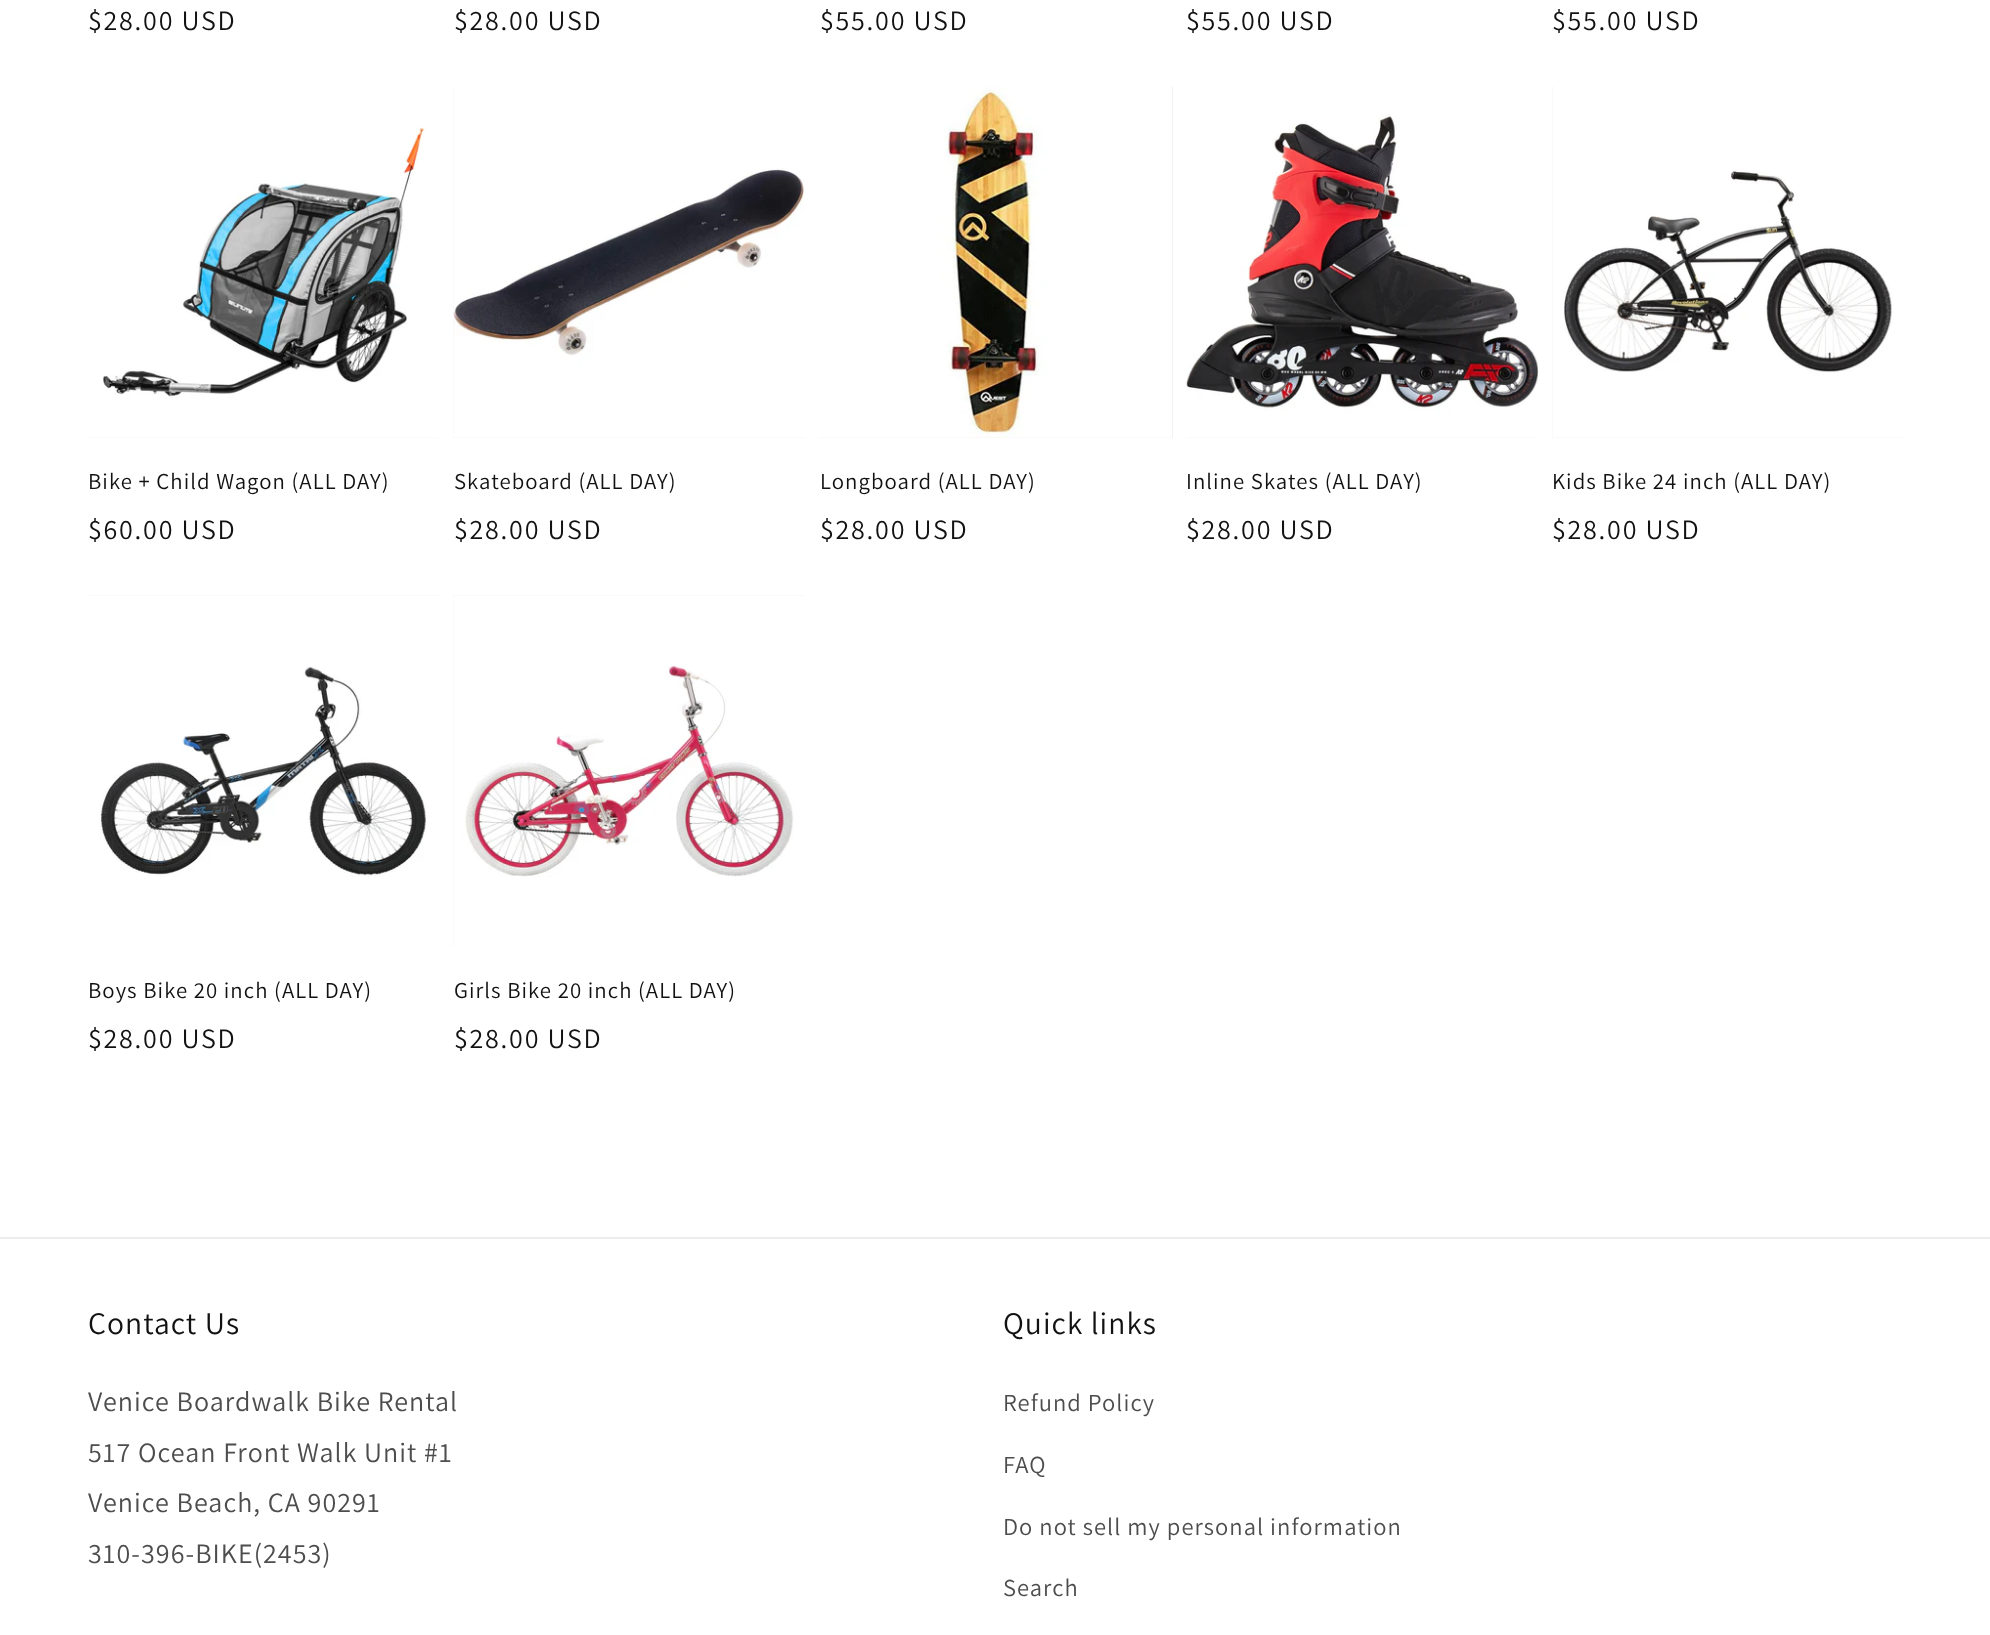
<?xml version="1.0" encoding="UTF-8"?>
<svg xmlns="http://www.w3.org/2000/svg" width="1990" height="1635">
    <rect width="100%" height="100%" fill="#FFFFFF"/>
    <text x="88" y="30" font-family="Assistant" font-size="28" letter-spacing="1.75" fill="#121212">$28.00 USD</text>
    <text x="454" y="30" font-family="Assistant" font-size="28" letter-spacing="1.75" fill="#121212">$28.00 USD</text>
    <text x="820" y="30" font-family="Assistant" font-size="28" letter-spacing="1.75" fill="#121212">$55.00 USD</text>
    <text x="1186" y="30" font-family="Assistant" font-size="28" letter-spacing="1.75" fill="#121212">$55.00 USD</text>
    <text x="1552" y="30" font-family="Assistant" font-size="28" letter-spacing="1.75" fill="#121212">$55.00 USD</text>
    <rect x="88" y="437" width="351" height="1" fill="#F3F3F3"/>
    <image x="88" y="86" width="351" height="352" href="img_01.png"/>
    <text x="88" y="489" font-family="Assistant" font-size="22.75" letter-spacing="1.05" fill="#121212">Bike + Child Wagon (ALL DAY)</text>
    <text x="88" y="539" font-family="Assistant" font-size="28" letter-spacing="1.75" fill="#121212">$60.00 USD</text>
    <rect x="453" y="86" width="352" height="352" fill="#F3F3F3"/>
    <image x="453" y="86" width="352" height="352" href="img_02.png"/>
    <text x="454" y="489" font-family="Assistant" font-size="22.75" letter-spacing="1.05" fill="#121212">Skateboard (ALL DAY)</text>
    <text x="454" y="539" font-family="Assistant" font-size="28" letter-spacing="1.75" fill="#121212">$28.00 USD</text>
    <rect x="819" y="86" width="354" height="352" fill="#F3F3F3"/>
    <image x="819" y="86" width="353" height="352" href="img_03.png"/>
    <text x="820" y="489" font-family="Assistant" font-size="22.75" letter-spacing="1.05" fill="#121212">Longboard (ALL DAY)</text>
    <text x="820" y="539" font-family="Assistant" font-size="28" letter-spacing="1.75" fill="#121212">$28.00 USD</text>
    <rect x="1187" y="437" width="351" height="1" fill="#F3F3F3"/>
    <image x="1186" y="86" width="353" height="352" href="img_04.png"/>
    <text x="1186" y="489" font-family="Assistant" font-size="22.75" letter-spacing="1.05" fill="#121212">Inline Skates (ALL DAY)</text>
    <text x="1186" y="539" font-family="Assistant" font-size="28" letter-spacing="1.75" fill="#121212">$28.00 USD</text>
    <rect x="1552" y="86" width="352" height="352" fill="#F3F3F3"/>
    <image x="1552" y="86" width="352" height="352" href="img_05.png"/>
    <text x="1552" y="489" font-family="Assistant" font-size="22.75" letter-spacing="1.05" fill="#121212">Kids Bike 24 inch (ALL DAY)</text>
    <text x="1552" y="539" font-family="Assistant" font-size="28" letter-spacing="1.75" fill="#121212">$28.00 USD</text>
    <rect x="88" y="595" width="351" height="1" fill="#F3F3F3"/>
    <image x="88" y="595" width="351" height="352" href="img_06.png"/>
    <text x="88" y="998" font-family="Assistant" font-size="22.75" letter-spacing="1.05" fill="#121212">Boys Bike 20 inch (ALL DAY)</text>
    <text x="88" y="1048" font-family="Assistant" font-size="28" letter-spacing="1.75" fill="#121212">$28.00 USD</text>
    <rect x="453" y="595" width="352" height="352" fill="#F3F3F3"/>
    <image x="453" y="595" width="352" height="352" href="img_07.png"/>
    <text x="454" y="998" font-family="Assistant" font-size="22.75" letter-spacing="1.05" fill="#121212">Girls Bike 20 inch (ALL DAY)</text>
    <text x="454" y="1048" font-family="Assistant" font-size="28" letter-spacing="1.75" fill="#121212">$28.00 USD</text>
    <rect x="0" y="1237" width="1990" height="2" fill="#ECECEC"/>
    <text x="88" y="1334" font-family="Assistant" font-size="31.5" letter-spacing="1.05" fill="#121212">Contact Us</text>
    <text font-family="Assistant" font-size="28" letter-spacing="1.05" fill="#4D4D4D">
        <tspan x="88" y="1411">Venice Boardwalk Bike Rental</tspan>
        <tspan x="88" y="1462">517 Ocean Front Walk Unit #1</tspan>
        <tspan x="88" y="1512">Venice Beach, CA 90291</tspan>
        <tspan x="88" y="1563">310-396-BIKE(2453)</tspan>
    </text>
    <text x="1003" y="1334" font-family="Assistant" font-size="31.5" letter-spacing="1.05" fill="#121212">Quick links</text>
    <text x="1003" y="1411" font-family="Assistant" font-size="24.5" letter-spacing="1.05" fill="#4D4D4D">Refund Policy</text>
    <text x="1003" y="1473" font-family="Assistant" font-size="24.5" letter-spacing="1.05" fill="#4D4D4D">FAQ</text>
    <text x="1003" y="1535" font-family="Assistant" font-size="24.5" letter-spacing="1.05" fill="#4D4D4D">Do not sell my personal information</text>
    <text x="1003" y="1596" font-family="Assistant" font-size="24.5" letter-spacing="1.05" fill="#4D4D4D">Search</text>
</svg>
